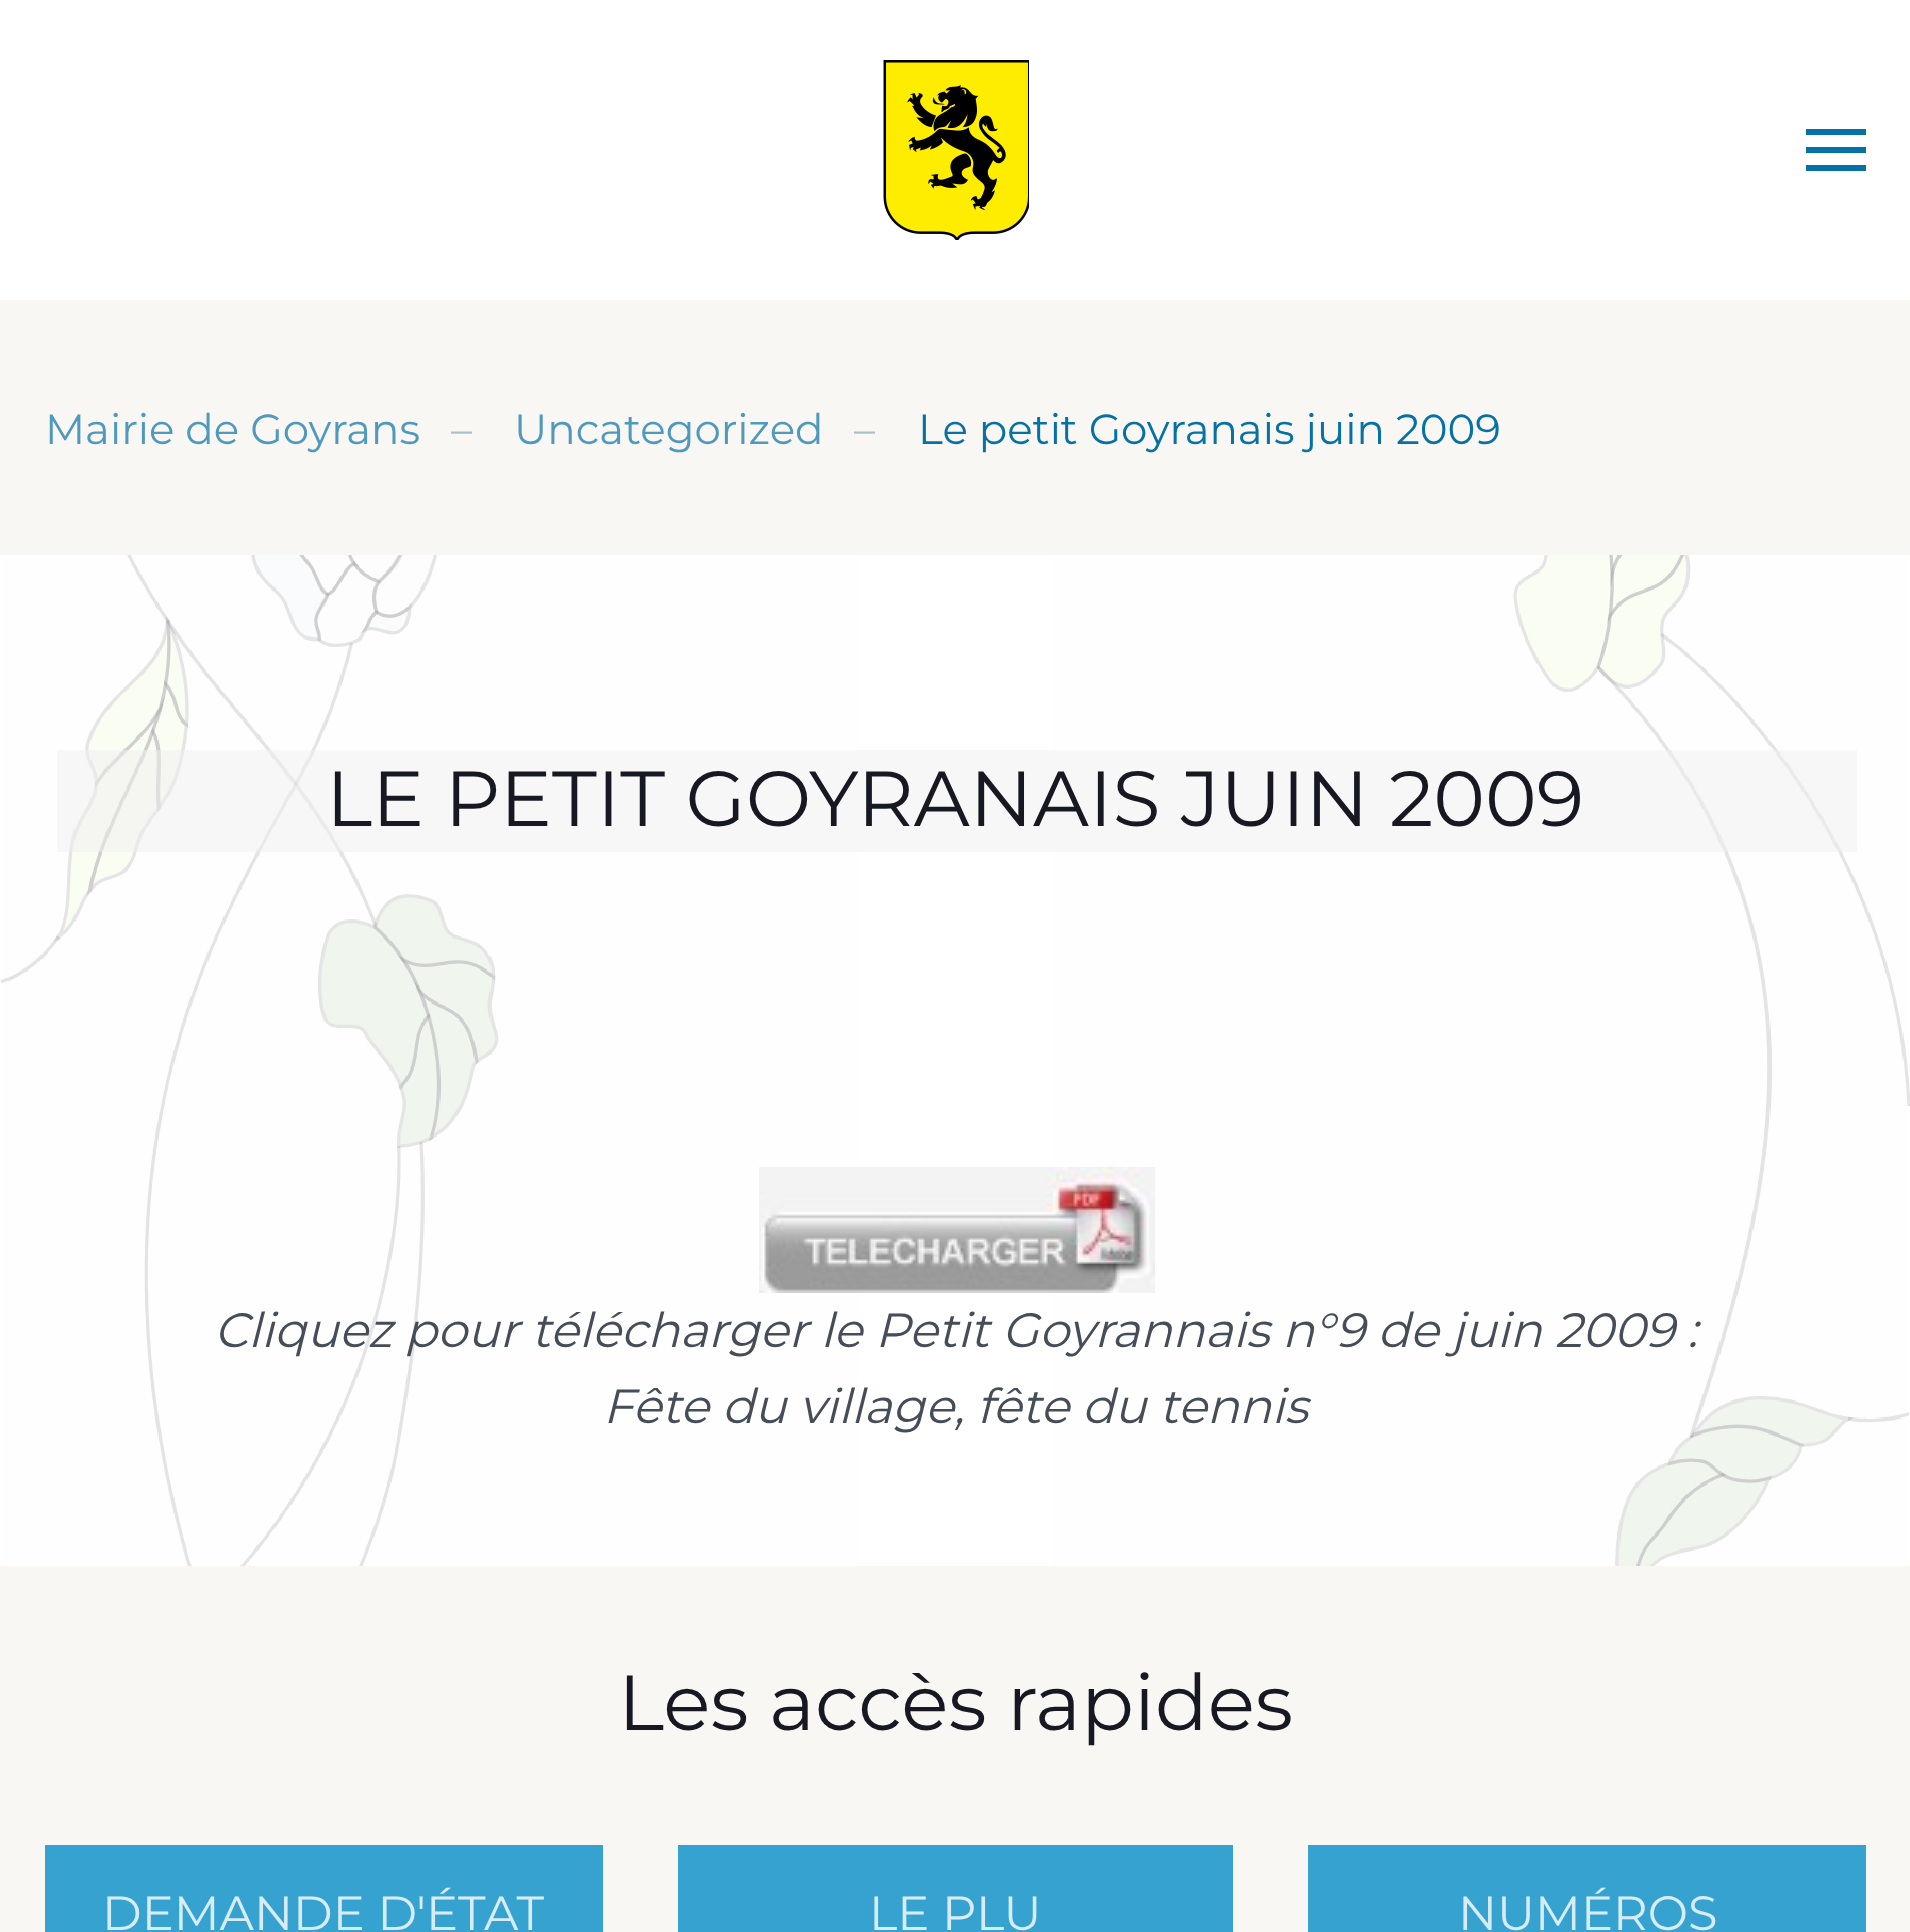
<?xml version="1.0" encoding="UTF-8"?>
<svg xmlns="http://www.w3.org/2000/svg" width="1910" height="1932">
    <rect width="100%" height="100%" fill="#FFFFFF"/>
    <image x="0" y="555" width="1910" height="1011" href="img_01.png"/>
    <image x="883" y="60" width="146" height="180" href="img_02.png"/>
    <rect x="1806" y="129" width="60" height="6" fill="#0671A5"/>
    <rect x="1806" y="147" width="60" height="6" fill="#0671A5"/>
    <rect x="1806" y="165" width="60" height="6" fill="#0671A5"/>
    <rect x="0" y="300" width="1910" height="255" fill="#F8F7F3"/>
    <text x="45" y="444" font-family="Montserrat" font-size="42" font-weight="100" fill="#4F99BC">Mairie de Goyrans</text>
    <text x="451" y="444" font-family="Montserrat" font-size="42" font-weight="100" fill="#ACBFC6">–</text>
    <text x="514" y="444" font-family="Montserrat" font-size="42" font-weight="100" fill="#4F99BC">Uncategorized</text>
    <text x="854" y="444" font-family="Montserrat" font-size="42" font-weight="100" fill="#ACBFC6">–</text>
    <text x="918" y="444" font-family="Montserrat" font-size="42" font-weight="100" fill="#0671A5">Le petit Goyranais juin 2009</text>
    <rect x="57" y="750" width="1800" height="102" fill="#EFEFEF" fill-opacity="0.5"/>
    <text x="326" y="826" font-family="Montserrat" font-size="78" font-weight="100" fill="#171822">LE PETIT GOYRANAIS JUIN 2009</text>
    <image x="759" y="1167" width="396" height="126" href="img_03.png"/>
    <text x="214" y="1347" font-family="Montserrat" font-size="48" font-weight="100" font-style="italic" fill="#444D58">Cliquez pour télécharger le Petit Goyrannais n°9 de juin 2009 :</text>
    <text x="603" y="1423" font-family="Montserrat" font-size="48" font-weight="100" font-style="italic" fill="#444D58">Fête du village, fête du tennis</text>
    <rect x="0" y="1566" width="1910" height="366" fill="#F8F7F3"/>
    <text x="618" y="1730" font-family="Montserrat" font-size="78" font-weight="100" fill="#171822">Les accès rapides</text>
    <rect x="45" y="1845" width="558" height="87" fill="#36A2CF"/>
    <text x="102" y="1930" font-family="Montserrat" font-size="48" font-weight="100" fill="#D7ECF5">DEMANDE D'ÉTAT</text>
    <rect x="678" y="1845" width="555" height="87" fill="#36A2CF"/>
    <text x="869" y="1930" font-family="Montserrat" font-size="48" font-weight="100" fill="#D7ECF5">LE PLU</text>
    <rect x="1308" y="1845" width="558" height="87" fill="#36A2CF"/>
    <text x="1458" y="1930" font-family="Montserrat" font-size="48" font-weight="100" fill="#D7ECF5">NUMÉROS</text>
</svg>
